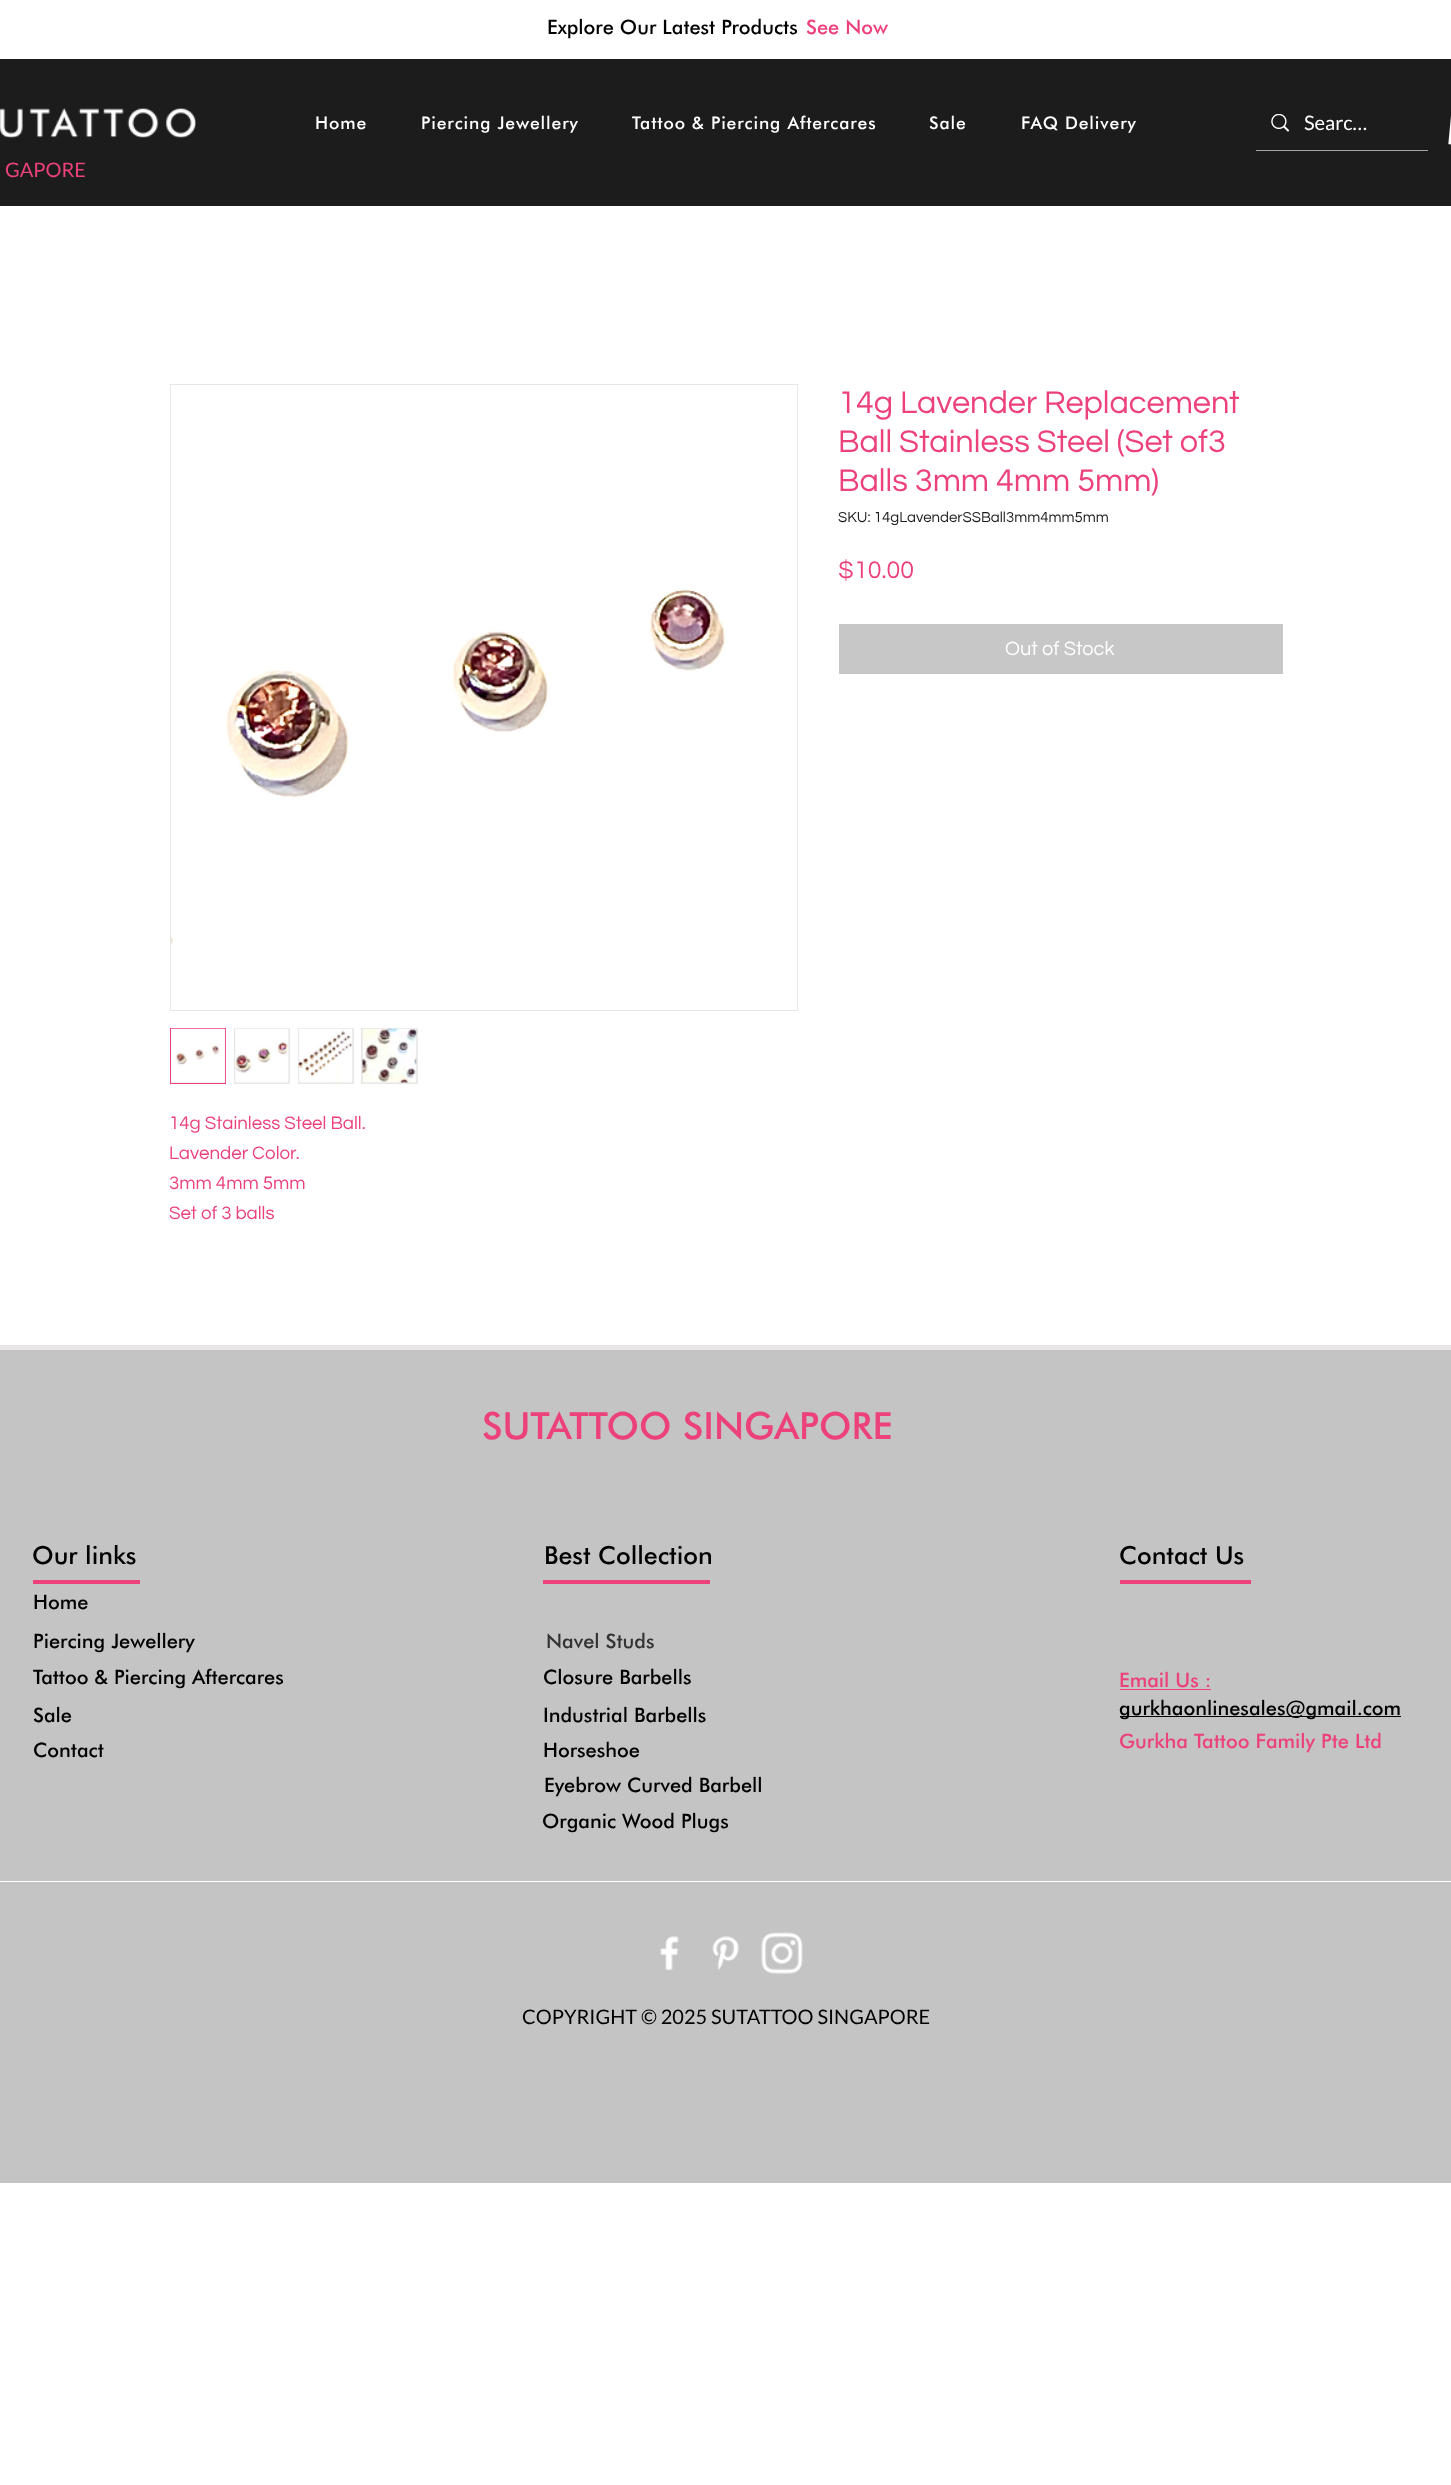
<?xml version="1.0" encoding="UTF-8"?>
<svg xmlns="http://www.w3.org/2000/svg" width="1451" height="2485">
    <rect width="100%" height="100%" fill="#FFFFFF"/>
    <text x="547" y="34" font-family="Futura" font-size="20" font-weight="500" fill="#000000">Explore Our Latest Products</text>
    <text x="806" y="34" font-family="Futura" font-size="20" font-weight="500" fill="#EC417A">See Now</text>
    <rect x="0" y="59" width="1451" height="147" fill="#1C1C1C"/>
    <image x="0" y="108" width="196" height="30" href="img_01.png"/>
    <text x="315" y="129" font-family="Futura" font-size="17.5" font-weight="500" letter-spacing="0.9" fill="#FFFFFF">Home</text>
    <text x="421" y="129" font-family="Futura" font-size="17.5" font-weight="500" letter-spacing="0.9" fill="#FFFFFF">Piercing Jewellery</text>
    <text x="632" y="129" font-family="Futura" font-size="17.5" font-weight="500" letter-spacing="0.9" fill="#FFFFFF">Tattoo &amp; Piercing Aftercares</text>
    <text x="929" y="129" font-family="Futura" font-size="17.5" font-weight="500" letter-spacing="0.9" fill="#FFFFFF">Sale</text>
    <text x="1021" y="129" font-family="Futura" font-size="17.5" font-weight="500" letter-spacing="0.9" fill="#FFFFFF">FAQ Delivery</text>
    <rect x="1256" y="150" width="172" height="1" fill="#A4A4A4"/>
    <image x="1271" y="114" width="18" height="18" href="img_02.png"/>
    <text x="1304" y="130" font-family="Lato" font-size="20" fill="#FFFFFF">Searc…</text>
    <image x="1448" y="116" width="3" height="29" href="img_03.png"/>
    <text x="5" y="177" font-family="Lato" font-size="20" fill="#EC417A">GAPORE</text>
    <text font-family="Questrial" font-size="32.5" fill="#EC417A">
        <tspan x="838" y="413">14g Lavender Replacement</tspan>
        <tspan x="838" y="452">Ball Stainless Steel (Set of3</tspan>
        <tspan x="838" y="491">Balls 3mm 4mm 5mm)</tspan>
    </text>
    <text x="838" y="522" font-family="Questrial" font-size="15" fill="#1C1C1C">SKU: 14gLavenderSSBall3mm4mm5mm</text>
    <text x="838" y="578" font-family="Questrial" font-size="25" fill="#EC417A">$10.00</text>
    <rect x="839" y="624" width="444" height="50" fill="#C7C7C7"/>
    <text x="1005" y="655" font-family="Questrial" font-size="20" fill="#FFFFFF">Out of Stock</text>
    <rect x="170.5" y="384.5" width="627" height="626" fill="none" stroke="#E8E6E6"/>
    <image x="171" y="589" width="554" height="355" href="img_04.png"/>
    <rect x="170.5" y="1028.5" width="55" height="55" fill="#E8E6E6" stroke="#EC417A"/>
    <image x="171" y="1028" width="55" height="55" href="img_05.png"/>
    <rect x="234" y="1028" width="56" height="56" fill="#E8E6E6"/>
    <image x="235" y="1028" width="54" height="55" href="img_06.png"/>
    <rect x="298" y="1028" width="56" height="56" fill="#E8E6E6"/>
    <image x="298" y="1028" width="55" height="55" href="img_07.png"/>
    <rect x="361" y="1028" width="57" height="56" fill="#E8E6E6"/>
    <image x="362" y="1028" width="55" height="55" href="img_08.png"/>
    <text font-family="Questrial" font-size="18.75" fill="#EC417A">
        <tspan x="169" y="1129">14g Stainless Steel Ball.</tspan>
        <tspan x="169" y="1159">Lavender Color.</tspan>
        <tspan x="169" y="1189">3mm 4mm 5mm</tspan>
        <tspan x="169" y="1219">Set of 3 balls</tspan>
    </text>
    <rect x="0" y="1345" width="1451" height="5" fill="#E8E6E6"/>
    <rect x="0" y="1350" width="1451" height="833" fill="#C4C4C4"/>
    <text x="482" y="1439" font-family="Futura" font-size="37.5" font-weight="500" fill="#EC417A">SUTATTOO SINGAPORE</text>
    <text x="32" y="1564" font-family="Futura" font-size="25" font-weight="500" fill="#000000">Our links</text>
    <text x="544" y="1564" font-family="Futura" font-size="25" font-weight="500" fill="#000000">Best Collection</text>
    <text x="1119" y="1564" font-family="Futura" font-size="25" font-weight="500" fill="#000000">Contact Us</text>
    <rect x="1120" y="1580" width="131" height="4" fill="#EC417A"/>
    <text x="1119" y="1687" font-family="Futura" font-size="20" font-weight="500" fill="#EC417A">Email Us :</text>
    <rect x="1120" y="1689" width="91" height="1" fill="#EC417A"/>
    <rect x="1120" y="1716" width="281" height="1" fill="#000000"/>
    <text x="1119" y="1715" font-family="Futura" font-size="20" font-weight="500" fill="#000000">gurkhaonlinesales@gmail.com</text>
    <text x="1119" y="1748" font-family="Futura" font-size="20" font-weight="500" fill="#EC417A">Gurkha Tattoo Family Pte Ltd</text>
    <rect x="33" y="1580" width="107" height="4" fill="#EC417A"/>
    <rect x="543" y="1580" width="167" height="4" fill="#EC417A"/>
    <text font-family="Futura" font-size="20" font-weight="500" fill="#000000">
        <tspan x="33" y="1609">Home</tspan>
        <tspan x="33" y="1648">Piercing Jewellery</tspan>
    </text>
    <text x="546" y="1648" font-family="Futura" font-size="20" font-weight="500" fill="#323232">Navel Studs</text>
    <text x="33" y="1684" font-family="Futura" font-size="20" font-weight="500" fill="#000000">Tattoo &amp; Piercing Aftercares</text>
    <text x="543" y="1684" font-family="Futura" font-size="20" font-weight="500" fill="#000000">Closure Barbells</text>
    <text x="33" y="1722" font-family="Futura" font-size="20" font-weight="500" fill="#000000">Sale</text>
    <text x="543" y="1722" font-family="Futura" font-size="20" font-weight="500" fill="#000000">Industrial Barbells</text>
    <text x="33" y="1757" font-family="Futura" font-size="20" font-weight="500" fill="#000000">Contact</text>
    <text x="543" y="1757" font-family="Futura" font-size="20" font-weight="500" fill="#000000">Horseshoe</text>
    <text x="544" y="1792" font-family="Futura" font-size="20" font-weight="500" fill="#000000">Eyebrow Curved Barbell</text>
    <text x="542" y="1828" font-family="Futura" font-size="20" font-weight="500" fill="#000000">Organic Wood Plugs</text>
    <rect x="0" y="1881" width="1451" height="1" fill="#FFFFFF"/>
    <image x="660" y="1936" width="19" height="35" href="img_09.png"/>
    <image x="712" y="1936" width="27" height="34" href="img_10.png"/>
    <image x="761" y="1932" width="42" height="42" href="img_11.png"/>
    <text x="522" y="2024" font-family="Lato" font-size="20" fill="#000000">COPYRIGHT © 2025 SUTATTOO SINGAPORE</text>
</svg>
